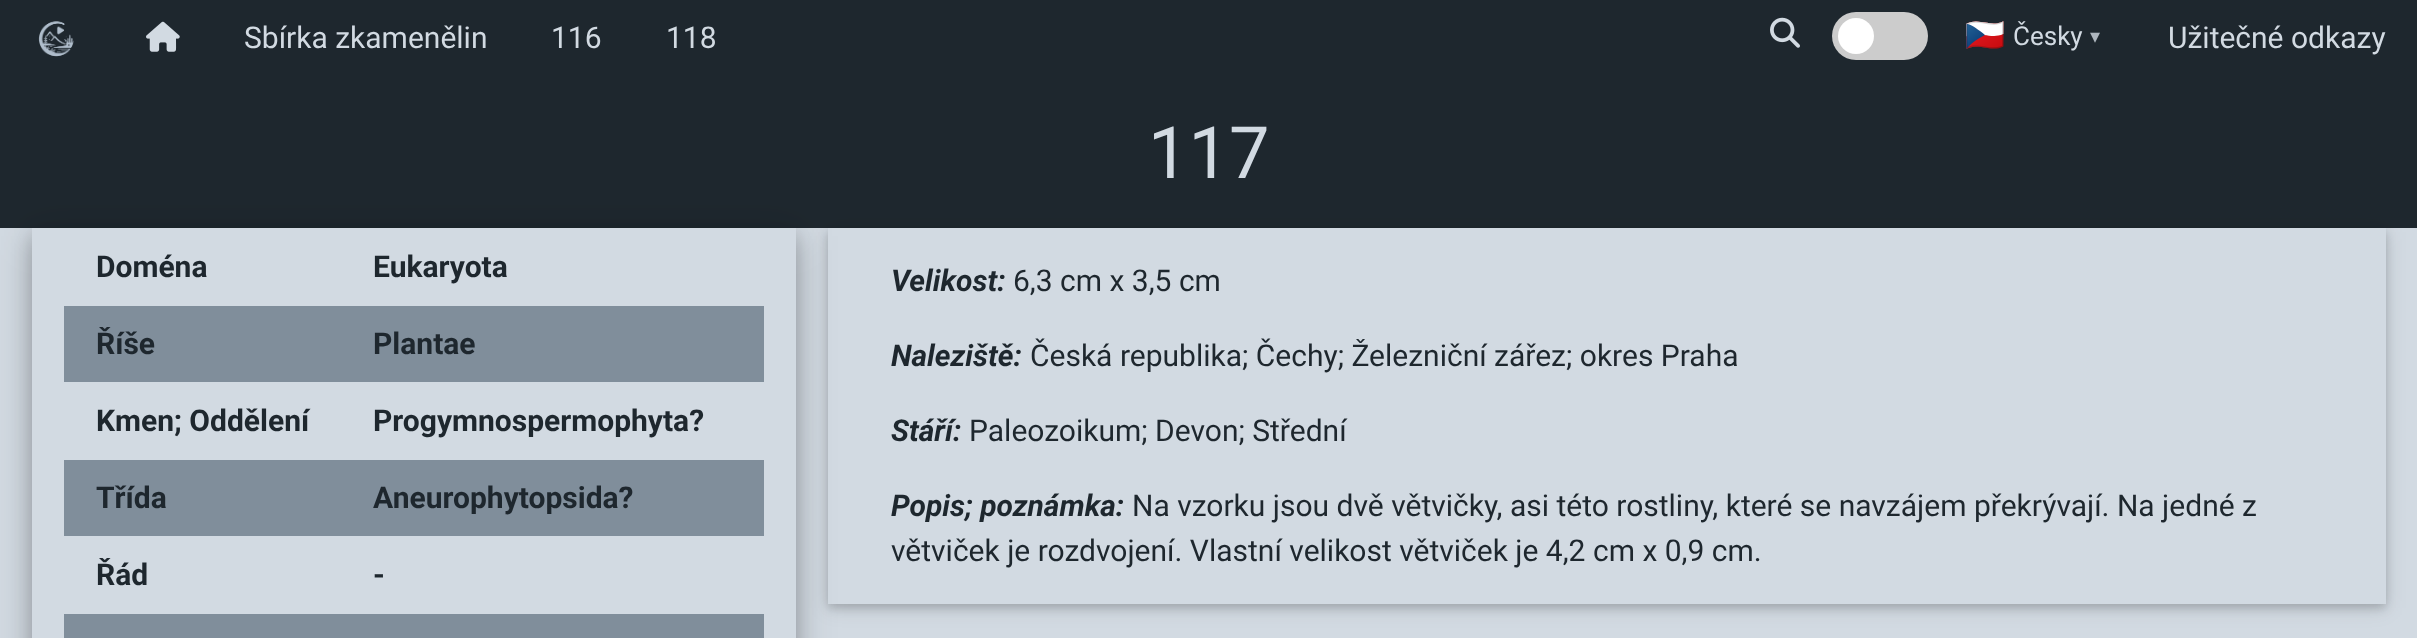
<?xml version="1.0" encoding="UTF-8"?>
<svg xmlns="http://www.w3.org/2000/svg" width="2417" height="638">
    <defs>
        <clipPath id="clip1"><path d="M 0 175 H 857 V 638 H 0 Z M 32 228 H 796 V 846 H 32 Z" clip-rule="evenodd"/></clipPath>
        <filter id="blur1" x="-50%" y="-200%" width="200%" height="500%"><feGaussianBlur stdDeviation="20"/></filter>
        <clipPath id="clip2"><path d="M 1 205 H 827 V 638 H 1 Z M 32 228 H 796 V 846 H 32 Z" clip-rule="evenodd"/></clipPath>
        <filter id="blur2" x="-50%" y="-200%" width="200%" height="500%"><feGaussianBlur stdDeviation="10"/></filter>
        <clipPath id="clip3"><path d="M 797 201 H 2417 V 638 H 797 Z M 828 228 H 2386 V 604 H 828 Z" clip-rule="evenodd"/></clipPath>
        <clipPath id="clip4"><path d="M 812 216 H 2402 V 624 H 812 Z M 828 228 H 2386 V 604 H 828 Z" clip-rule="evenodd"/></clipPath>
        <filter id="blur3" x="-50%" y="-200%" width="200%" height="500%"><feGaussianBlur stdDeviation="5"/></filter>
    </defs>
    <rect width="100%" height="100%" fill="#D2DAE2"/>
    <rect x="0" y="0" width="2417" height="228" fill="#1E272E"/>
    <image x="38" y="21" width="36" height="36" href="img_01.png"/>
    <image x="146" y="21" width="34" height="31" href="img_02.png"/>
    <text x="244" y="48" font-family="Roboto" font-size="30" fill="#D2DAE2">Sbírka zkamenělin</text>
    <text x="551" y="48" font-family="Roboto" font-size="30" fill="#D2DAE2">116</text>
    <text x="666" y="48" font-family="Roboto" font-size="30" fill="#D2DAE2">118</text>
    <image x="1770" y="17" width="30" height="31" href="img_03.png"/>
    <rect x="1832" y="12" width="96" height="48" rx="24" fill="#CCCCCC"/>
    <circle cx="1856" cy="36" r="18" fill="#FFFFFF"/>
    <text x="1965" y="46" font-family="Noto Color Emoji" font-size="32" fill="#D2DAE2">🇨🇿</text>
    <text x="2013" y="45" font-family="Roboto" font-size="26" fill="#D2DAE2">Česky</text>
    <text x="2090" y="43" font-family="DejaVu Sans" font-size="20" fill="#AEB6BE">▾</text>
    <text x="2168" y="48" font-family="Roboto" font-size="30" fill="#D2DAE2">Užitečné odkazy</text>
    <text x="1148" y="178" font-family="Roboto" font-size="72" fill="#D2DAE2">117</text>
    <g clip-path="url(#clip1)">
        <rect x="32" y="236" width="764" height="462" fill="#000000" fill-opacity="0.19" filter="url(#blur1)"/>
    </g>
    <g clip-path="url(#clip2)">
        <rect x="32" y="236" width="764" height="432" fill="#000000" fill-opacity="0.2" filter="url(#blur2)"/>
    </g>
    <text x="96" y="277" font-family="Roboto" font-size="30" font-weight="700" fill="#1E272E">Doména</text>
    <text x="373" y="277" font-family="Roboto" font-size="30" font-weight="700" fill="#1E272E">Eukaryota</text>
    <rect x="64" y="306" width="700" height="76" fill="#808E9B"/>
    <text x="96" y="354" font-family="Roboto" font-size="30" font-weight="700" fill="#1E272E">Říše</text>
    <text x="373" y="354" font-family="Roboto" font-size="30" font-weight="700" fill="#1E272E">Plantae</text>
    <text x="96" y="431" font-family="Roboto" font-size="30" font-weight="700" fill="#1E272E">Kmen; Oddělení</text>
    <text x="373" y="431" font-family="Roboto" font-size="30" font-weight="700" fill="#1E272E">Progymnospermophyta?</text>
    <rect x="64" y="460" width="700" height="76" fill="#808E9B"/>
    <text x="96" y="508" font-family="Roboto" font-size="30" font-weight="700" fill="#1E272E">Třída</text>
    <text x="373" y="508" font-family="Roboto" font-size="30" font-weight="700" fill="#1E272E">Aneurophytopsida?</text>
    <text x="96" y="585" font-family="Roboto" font-size="30" font-weight="700" fill="#1E272E">Řád</text>
    <text x="373" y="585" font-family="Roboto" font-size="30" font-weight="700" fill="#1E272E">-</text>
    <rect x="64" y="614" width="700" height="24" fill="#808E9B"/>
    <g clip-path="url(#clip3)">
        <rect x="828" y="232" width="1558" height="376" fill="#000000" fill-opacity="0.12" filter="url(#blur2)"/>
    </g>
    <g clip-path="url(#clip4)">
        <rect x="828" y="232" width="1558" height="376" fill="#000000" fill-opacity="0.16" filter="url(#blur3)"/>
    </g>
    <text x="891" y="291" font-family="Roboto" font-size="30" font-weight="700" font-style="italic" fill="#1E272E">Velikost:</text>
    <text x="1013" y="291" font-family="Roboto" font-size="30" fill="#1E272E">6,3 cm x 3,5 cm</text>
    <text x="891" y="366" font-family="Roboto" font-size="30" font-weight="700" font-style="italic" fill="#1E272E">Naleziště:</text>
    <text x="1030" y="366" font-family="Roboto" font-size="30" fill="#1E272E">Česká republika; Čechy; Železniční zářez; okres Praha</text>
    <text x="891" y="441" font-family="Roboto" font-size="30" font-weight="700" font-style="italic" fill="#1E272E">Stáří:</text>
    <text x="969" y="441" font-family="Roboto" font-size="30" fill="#1E272E">Paleozoikum; Devon; Střední</text>
    <text x="891" y="516" font-family="Roboto" font-size="30" font-weight="700" font-style="italic" fill="#1E272E">Popis; poznámka:</text>
    <text x="1132" y="516" font-family="Roboto" font-size="30" fill="#1E272E">Na vzorku jsou dvě větvičky, asi této rostliny, které se navzájem překrývají. Na jedné z</text>
    <text x="891" y="561" font-family="Roboto" font-size="30" fill="#1E272E">větviček je rozdvojení. Vlastní velikost větviček je 4,2 cm x 0,9 cm.</text>
</svg>
